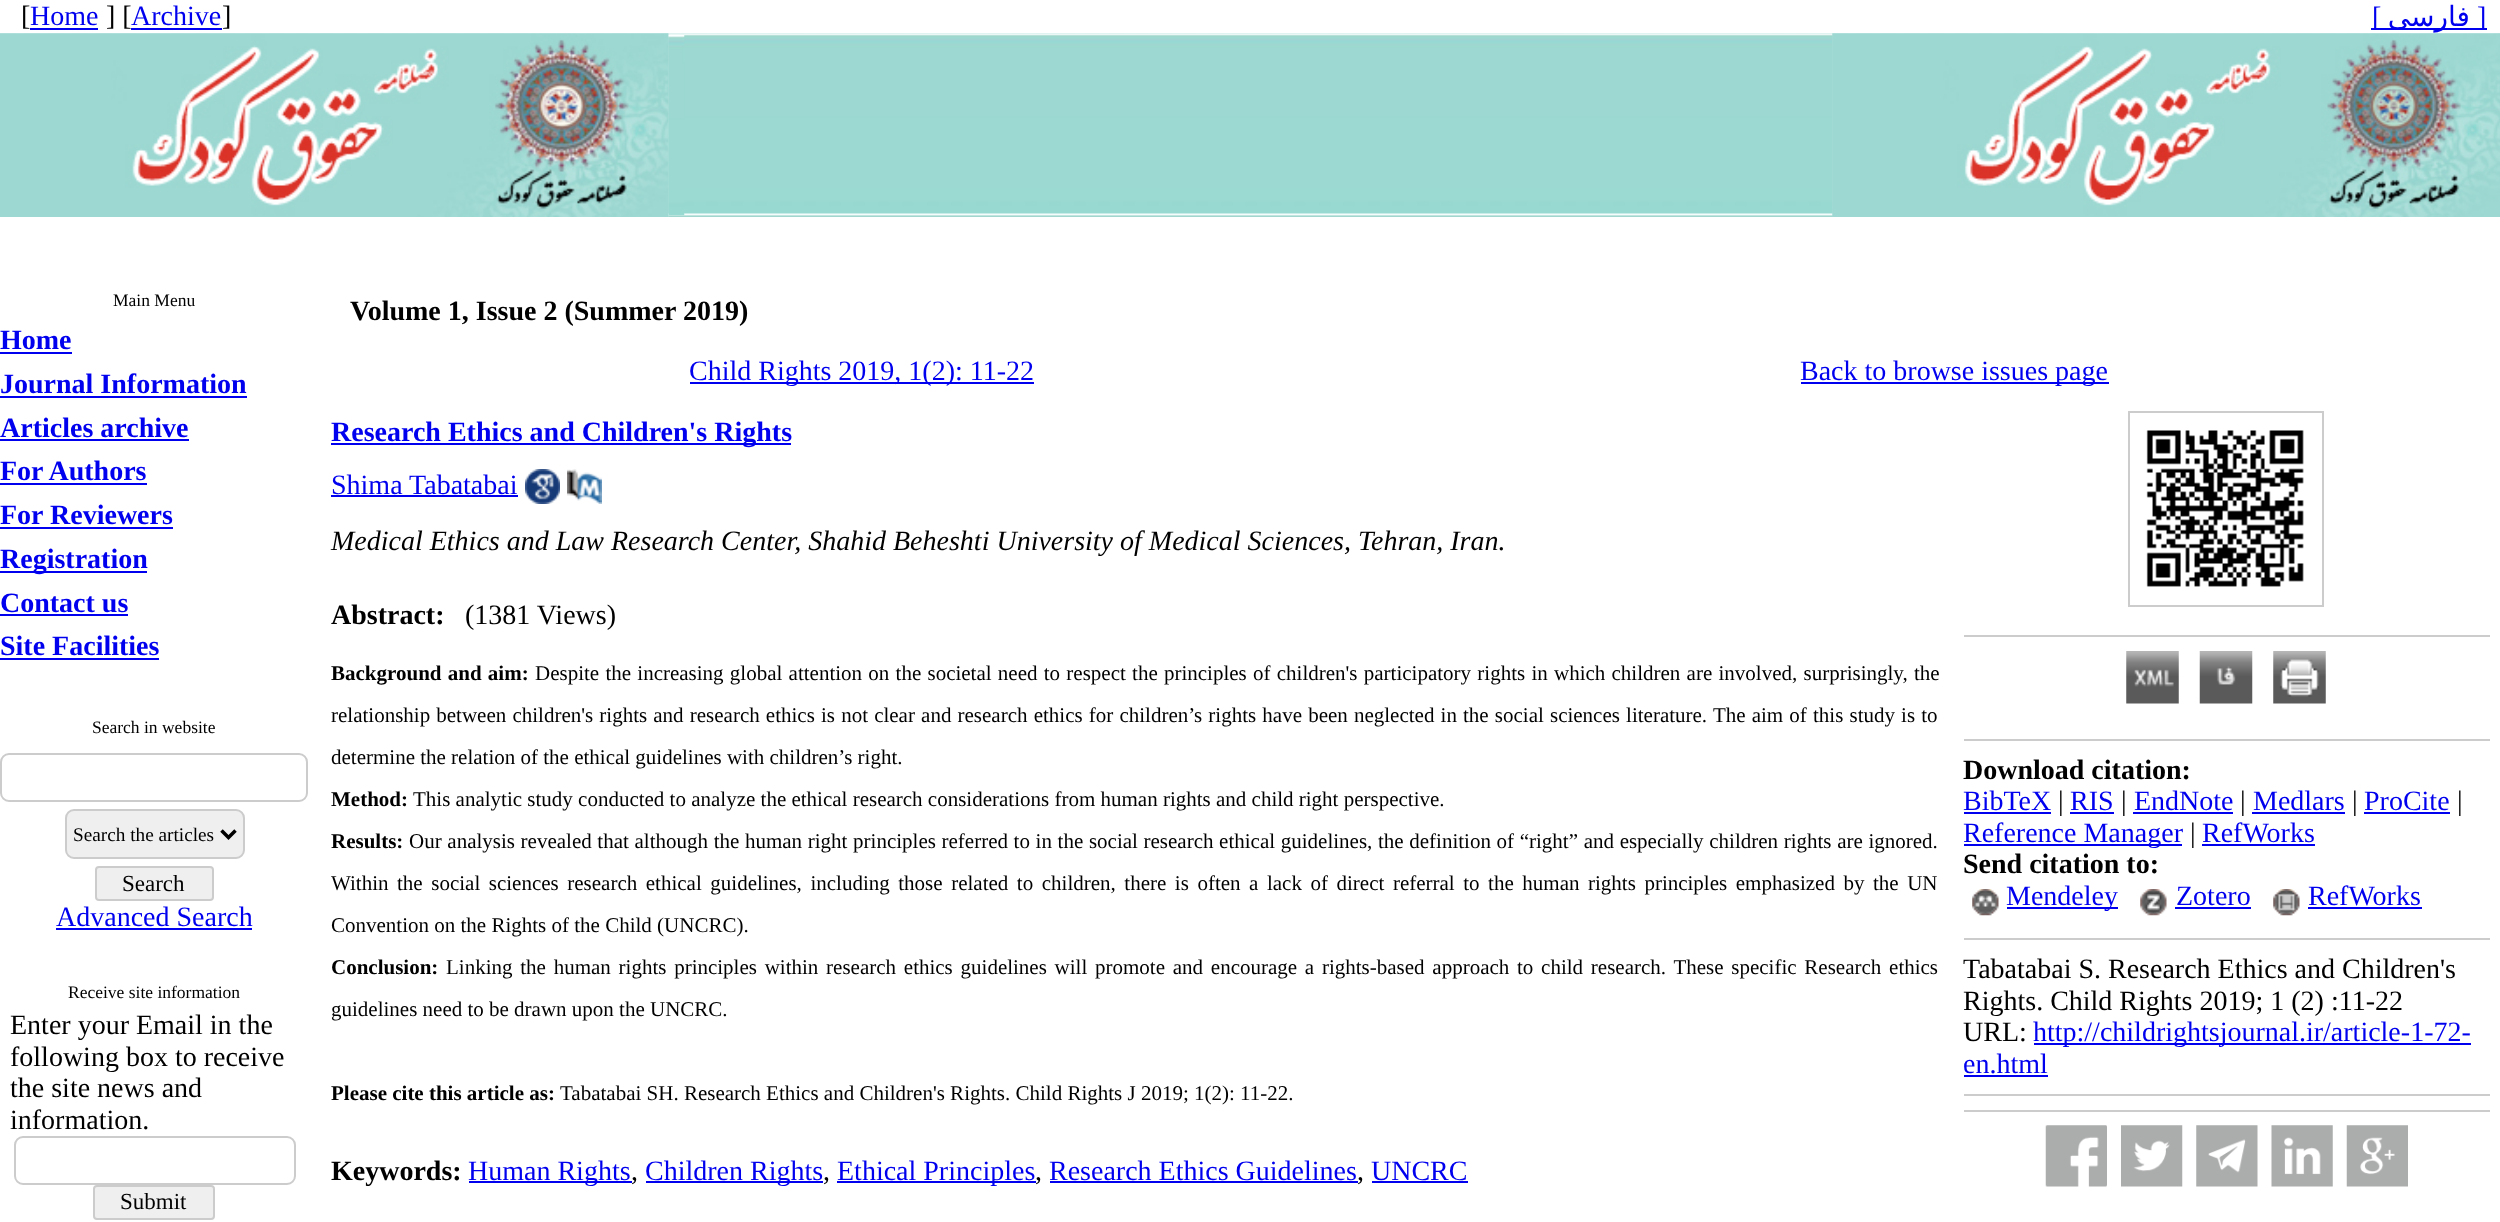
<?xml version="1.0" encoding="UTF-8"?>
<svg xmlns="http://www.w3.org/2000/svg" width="2500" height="1222">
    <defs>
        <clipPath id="clip1"><rect x="74" y="823" width="141" height="24"/></clipPath>
    </defs>
    <rect width="100%" height="100%" fill="#FFFFFF"/>
    <text x="21" y="25" font-family="Liberation Serif" font-size="28" fill="#000000">[</text>
    <text x="30" y="25" font-family="Liberation Serif" font-size="28" fill="#0000EE">Home</text>
    <rect x="30" y="28" width="68" height="2" fill="#0000EE"/>
    <text x="106" y="25" font-family="Liberation Serif" font-size="28" fill="#000000">] [</text>
    <text x="131" y="25" font-family="Liberation Serif" font-size="28" fill="#0000EE">Archive</text>
    <rect x="131" y="28" width="91" height="2" fill="#0000EE"/>
    <text x="222" y="25" font-family="Liberation Serif" font-size="28" fill="#000000">]</text>
    <rect x="2371" y="28" width="116" height="2" fill="#0000EE"/>
    <text x="2372" y="26" font-family="Liberation Serif" font-size="28" fill="#0000EE">[</text>
    <text x="2470" y="26" font-family="DejaVu Sans" font-size="28" direction="rtl" fill="#0000EE">فارسی</text>
    <text x="2477" y="26" font-family="Liberation Serif" font-size="28" fill="#0000EE">]</text>
    <image x="0" y="33" width="669" height="184" href="img_01.png"/>
    <image x="668" y="33" width="1165" height="184" href="img_03.png"/>
    <image x="0" y="33" width="669" height="184" href="img_02.png"/>
    <image x="668" y="35" width="17" height="181" href="img_04.png"/>
    <image x="1832" y="33" width="668" height="184" href="img_05.png"/>
    <image x="1832" y="33" width="668" height="184" href="img_06.png"/>
    <text x="113" y="306" font-family="Liberation Serif" font-size="17.5" fill="#000000">Main Menu</text>
    <text x="0" y="349" font-family="Liberation Serif" font-size="28" font-weight="700" fill="#0000EE">Home</text>
    <rect x="0" y="352" width="72" height="2" fill="#0000EE"/>
    <text x="0" y="393" font-family="Liberation Serif" font-size="28" font-weight="700" fill="#0000EE">Journal Information</text>
    <rect x="0" y="396" width="247" height="2" fill="#0000EE"/>
    <text x="0" y="437" font-family="Liberation Serif" font-size="28" font-weight="700" fill="#0000EE">Articles archive</text>
    <rect x="0" y="439" width="189" height="2" fill="#0000EE"/>
    <text x="0" y="480" font-family="Liberation Serif" font-size="28" font-weight="700" fill="#0000EE">For Authors</text>
    <rect x="0" y="483" width="147" height="2" fill="#0000EE"/>
    <text x="0" y="524" font-family="Liberation Serif" font-size="28" font-weight="700" fill="#0000EE">For Reviewers</text>
    <rect x="0" y="527" width="173" height="2" fill="#0000EE"/>
    <rect x="0" y="571" width="147" height="2" fill="#0000EE"/>
    <text font-family="Liberation Serif" font-size="28" font-weight="700" fill="#0000EE">
        <tspan x="0" y="568">Registration</tspan>
        <tspan x="0" y="612">Contact us</tspan>
    </text>
    <rect x="0" y="614" width="128" height="2" fill="#0000EE"/>
    <text x="0" y="655" font-family="Liberation Serif" font-size="28" font-weight="700" fill="#0000EE">Site Facilities</text>
    <rect x="0" y="658" width="159" height="2" fill="#0000EE"/>
    <text x="92" y="733" font-family="Liberation Serif" font-size="17.5" fill="#000000">Search in website</text>
    <rect x="1" y="754" width="306" height="47" rx="8" fill="none" stroke="#CCCCCC" stroke-width="2"/>
    <rect x="66" y="810" width="178" height="48" rx="8" fill="#EFEFEF" stroke="#CCCCCC" stroke-width="2"/>
    <path d="M 221.5 830.5 L 228.5 837.5 L 235.5 830.5" fill="none" stroke="#000000" stroke-width="3.5"/>
    <g clip-path="url(#clip1)">
        <text x="73" y="841" font-family="Liberation Serif" font-size="19.25" fill="#000000">Search the articles</text>
    </g>
    <rect x="96" y="867" width="117" height="33" rx="3" fill="#EFEFEF" stroke="#CCCCCC" stroke-width="2"/>
    <text x="122" y="891" font-family="Liberation Serif" font-size="23" fill="#000000">Search</text>
    <text x="56" y="926" font-family="Liberation Serif" font-size="28" fill="#0000EE">Advanced Search</text>
    <rect x="56" y="928" width="196" height="2" fill="#0000EE"/>
    <text x="68" y="998" font-family="Liberation Serif" font-size="17.5" fill="#000000">Receive site information</text>
    <text font-family="Liberation Serif" font-size="28" fill="#000000">
        <tspan x="10" y="1034">Enter your Email in the</tspan>
        <tspan x="10" y="1066">following box to receive</tspan>
        <tspan x="10" y="1097">the site news and</tspan>
        <tspan x="10" y="1129">information.</tspan>
    </text>
    <rect x="15" y="1137" width="280" height="47" rx="8" fill="none" stroke="#CCCCCC" stroke-width="2"/>
    <rect x="94" y="1186" width="120" height="33" rx="3" fill="#EFEFEF" stroke="#CCCCCC" stroke-width="2"/>
    <text x="120" y="1209" font-family="Liberation Serif" font-size="23" fill="#000000">Submit</text>
    <text x="350" y="320" font-family="Liberation Serif" font-size="28" font-weight="700" fill="#000000">Volume 1, Issue 2 (Summer 2019)</text>
    <rect x="690" y="382" width="344" height="2" fill="#0000EE"/>
    <text x="689" y="380" font-family="Liberation Serif" font-size="28" fill="#0000EE">Child Rights 2019, 1(2): 11-22</text>
    <rect x="1801" y="382" width="308" height="2" fill="#0000EE"/>
    <text x="1800" y="380" font-family="Liberation Serif" font-size="28" fill="#0000EE">Back to browse issues page</text>
    <rect x="331" y="443" width="460" height="2" fill="#0000EE"/>
    <text x="331" y="441" font-family="Liberation Serif" font-size="28" font-weight="700" fill="#0000EE">Research Ethics and Children's Rights</text>
    <text x="331" y="494" font-family="Liberation Serif" font-size="28" fill="#0000EE">Shima Tabatabai</text>
    <rect x="331" y="495" width="187" height="2" fill="#0000EE"/>
    <image x="525" y="469" width="35" height="35" href="img_07.png"/>
    <image x="567" y="469" width="35" height="35" href="img_08.png"/>
    <text x="331" y="550" font-family="Liberation Serif" font-size="28" font-style="italic" fill="#000000">Medical Ethics and Law Research Center, Shahid Beheshti University of Medical Sciences, Tehran, Iran.</text>
    <text x="331" y="624" font-family="Liberation Serif" font-size="28" font-weight="700" fill="#000000">Abstract:</text>
    <text x="465" y="624" font-family="Liberation Serif" font-size="28" fill="#000000">(1381 Views)</text>
    <text x="331" y="680" word-spacing="1" font-family="Liberation Serif" font-size="21" font-weight="700" fill="#000000">Background and aim:</text>
    <text x="535" y="680" word-spacing="1" font-family="Liberation Serif" font-size="21" fill="#000000">Despite the increasing global attention on the societal need to respect the principles of children's participatory rights in which children are involved, surprisingly, the</text>
    <text x="331" y="722" word-spacing="0.9" font-family="Liberation Serif" font-size="21" fill="#000000">relationship between children's rights and research ethics is not clear and research ethics for children’s rights have been neglected in the social sciences literature. The aim of this study is to</text>
    <text x="331" y="764" font-family="Liberation Serif" font-size="21" fill="#000000">determine the relation of the ethical guidelines with children’s right.</text>
    <text x="331" y="806" font-family="Liberation Serif" font-size="21" font-weight="700" fill="#000000">Method:</text>
    <text x="413" y="806" font-family="Liberation Serif" font-size="21" fill="#000000">This analytic study conducted to analyze the ethical research considerations from human rights and child right perspective.</text>
    <text x="331" y="848" font-family="Liberation Serif" font-size="21" font-weight="700" fill="#000000">Results:</text>
    <text x="409" y="848" word-spacing="0.4" font-family="Liberation Serif" font-size="21" fill="#000000">Our analysis revealed that although the human right principles referred to in the social research ethical guidelines, the definition of “right” and especially children rights are ignored.</text>
    <text x="331" y="890" word-spacing="3.3" font-family="Liberation Serif" font-size="21" fill="#000000">Within the social sciences research ethical guidelines, including those related to children, there is often a lack of direct referral to the human rights principles emphasized by the UN</text>
    <text x="331" y="932" font-family="Liberation Serif" font-size="21" fill="#000000">Convention on the Rights of the Child (UNCRC).</text>
    <text x="331" y="974" font-family="Liberation Serif" font-size="21" font-weight="700" fill="#000000">Conclusion:</text>
    <text x="446" y="974" word-spacing="2.5" font-family="Liberation Serif" font-size="21" fill="#000000">Linking the human rights principles within research ethics guidelines will promote and encourage a rights-based approach to child research. These specific Research ethics</text>
    <text x="331" y="1016" font-family="Liberation Serif" font-size="21" fill="#000000">guidelines need to be drawn upon the UNCRC.</text>
    <text x="331" y="1100" font-family="Liberation Serif" font-size="21" font-weight="700" fill="#000000">Please cite this article as:</text>
    <text x="560" y="1100" font-family="Liberation Serif" font-size="21" fill="#000000">Tabatabai SH. Research Ethics and Children's Rights. Child Rights J 2019; 1(2): 11-22.</text>
    <text x="331" y="1180" font-family="Liberation Serif" font-size="28" font-weight="700" fill="#000000">Keywords:</text>
    <rect x="469" y="1181" width="163" height="2" fill="#0000EE"/>
    <text x="468" y="1180" font-family="Liberation Serif" font-size="28" fill="#0000EE">Human Rights</text>
    <text x="631" y="1180" font-family="Liberation Serif" font-size="28" fill="#000000">,</text>
    <rect x="646" y="1181" width="177" height="2" fill="#0000EE"/>
    <text x="645" y="1180" font-family="Liberation Serif" font-size="28" fill="#0000EE">Children Rights</text>
    <text x="823" y="1180" font-family="Liberation Serif" font-size="28" fill="#000000">,</text>
    <rect x="837" y="1181" width="199" height="2" fill="#0000EE"/>
    <text x="837" y="1180" font-family="Liberation Serif" font-size="28" fill="#0000EE">Ethical Principles</text>
    <text x="1035" y="1180" font-family="Liberation Serif" font-size="28" fill="#000000">,</text>
    <text x="1049" y="1180" font-family="Liberation Serif" font-size="28" fill="#0000EE">Research Ethics Guidelines</text>
    <rect x="1050" y="1181" width="308" height="2" fill="#0000EE"/>
    <text x="1357" y="1180" font-family="Liberation Serif" font-size="28" fill="#000000">,</text>
    <text x="1371" y="1180" font-family="Liberation Serif" font-size="28" fill="#0000EE">UNCRC</text>
    <rect x="1372" y="1181" width="96" height="2" fill="#0000EE"/>
    <rect x="2129" y="412" width="194" height="194" fill="none" stroke="#CCCCCC" stroke-width="2"/>
    <image x="2146" y="430" width="158" height="157" href="img_09.png"/>
    <rect x="1964" y="635" width="526" height="2" fill="#CCCCCC"/>
    <image x="2126" y="651" width="53" height="53" href="img_10.png"/>
    <image x="2199" y="651" width="54" height="53" href="img_11.png"/>
    <image x="2273" y="651" width="53" height="53" href="img_12.png"/>
    <rect x="1964" y="739" width="526" height="2" fill="#CCCCCC"/>
    <text x="1963" y="779" font-family="Liberation Serif" font-size="28" font-weight="700" fill="#000000">Download citation:</text>
    <text x="1963" y="810" font-family="Liberation Serif" font-size="28" fill="#0000EE">BibTeX</text>
    <rect x="1964" y="812" width="87" height="2" fill="#0000EE"/>
    <text x="2058" y="810" font-family="Liberation Serif" font-size="28" fill="#000000">|</text>
    <text x="2070" y="810" font-family="Liberation Serif" font-size="28" fill="#0000EE">RIS</text>
    <rect x="2070" y="812" width="44" height="2" fill="#0000EE"/>
    <text x="2121" y="810" font-family="Liberation Serif" font-size="28" fill="#000000">|</text>
    <text x="2134" y="810" font-family="Liberation Serif" font-size="28" fill="#0000EE">EndNote</text>
    <rect x="2133" y="812" width="100" height="2" fill="#0000EE"/>
    <text x="2240" y="810" font-family="Liberation Serif" font-size="28" fill="#000000">|</text>
    <text x="2253" y="810" font-family="Liberation Serif" font-size="28" fill="#0000EE">Medlars</text>
    <rect x="2252" y="812" width="93" height="2" fill="#0000EE"/>
    <text x="2352" y="810" font-family="Liberation Serif" font-size="28" fill="#000000">|</text>
    <text x="2364" y="810" font-family="Liberation Serif" font-size="28" fill="#0000EE">ProCite</text>
    <rect x="2364" y="812" width="86" height="2" fill="#0000EE"/>
    <text x="2457" y="810" font-family="Liberation Serif" font-size="28" fill="#000000">|</text>
    <rect x="1964" y="844" width="218" height="2" fill="#0000EE"/>
    <text x="1963" y="842" font-family="Liberation Serif" font-size="28" fill="#0000EE">Reference Manager</text>
    <text x="2190" y="842" font-family="Liberation Serif" font-size="28" fill="#000000">|</text>
    <text x="2202" y="842" font-family="Liberation Serif" font-size="28" fill="#0000EE">RefWorks</text>
    <rect x="2202" y="844" width="113" height="2" fill="#0000EE"/>
    <text x="1963" y="873" font-family="Liberation Serif" font-size="28" font-weight="700" fill="#000000">Send citation to:</text>
    <image x="1972" y="889" width="27" height="27" href="img_13.png"/>
    <rect x="2007" y="907" width="111" height="2" fill="#0000EE"/>
    <text x="2006" y="905" font-family="Liberation Serif" font-size="28" fill="#0000EE">Mendeley</text>
    <image x="2140" y="889" width="27" height="27" href="img_14.png"/>
    <text x="2176" y="905" font-family="Liberation Serif" font-size="28" fill="#0000EE">Zotero</text>
    <rect x="2175" y="907" width="76" height="2" fill="#0000EE"/>
    <image x="2273" y="889" width="27" height="27" href="img_15.png"/>
    <text x="2308" y="905" font-family="Liberation Serif" font-size="28" fill="#0000EE">RefWorks</text>
    <rect x="2308" y="907" width="114" height="2" fill="#0000EE"/>
    <rect x="1964" y="938" width="526" height="2" fill="#CCCCCC"/>
    <text font-family="Liberation Serif" font-size="28" fill="#000000">
        <tspan x="1963" y="978">Tabatabai S. Research Ethics and Children's</tspan>
        <tspan x="1963" y="1010">Rights. Child Rights 2019; 1 (2) :11-22</tspan>
        <tspan x="1963" y="1041">URL:</tspan>
    </text>
    <rect x="2034" y="1043" width="437" height="2" fill="#0000EE"/>
    <text x="2033" y="1041" font-family="Liberation Serif" font-size="28" fill="#0000EE">http://childrightsjournal.ir/article-1-72-</text>
    <text x="1963" y="1073" font-family="Liberation Serif" font-size="28" fill="#0000EE">en.html</text>
    <rect x="1964" y="1075" width="84" height="2" fill="#0000EE"/>
    <rect x="1964" y="1094" width="526" height="2" fill="#CCCCCC"/>
    <rect x="1964" y="1110" width="526" height="2" fill="#CCCCCC"/>
    <image x="2045" y="1125" width="62" height="62" href="img_16.png"/>
    <image x="2121" y="1125" width="62" height="62" href="img_17.png"/>
    <image x="2196" y="1125" width="62" height="62" href="img_18.png"/>
    <image x="2271" y="1125" width="62" height="62" href="img_19.png"/>
    <image x="2346" y="1125" width="62" height="62" href="img_20.png"/>
</svg>
